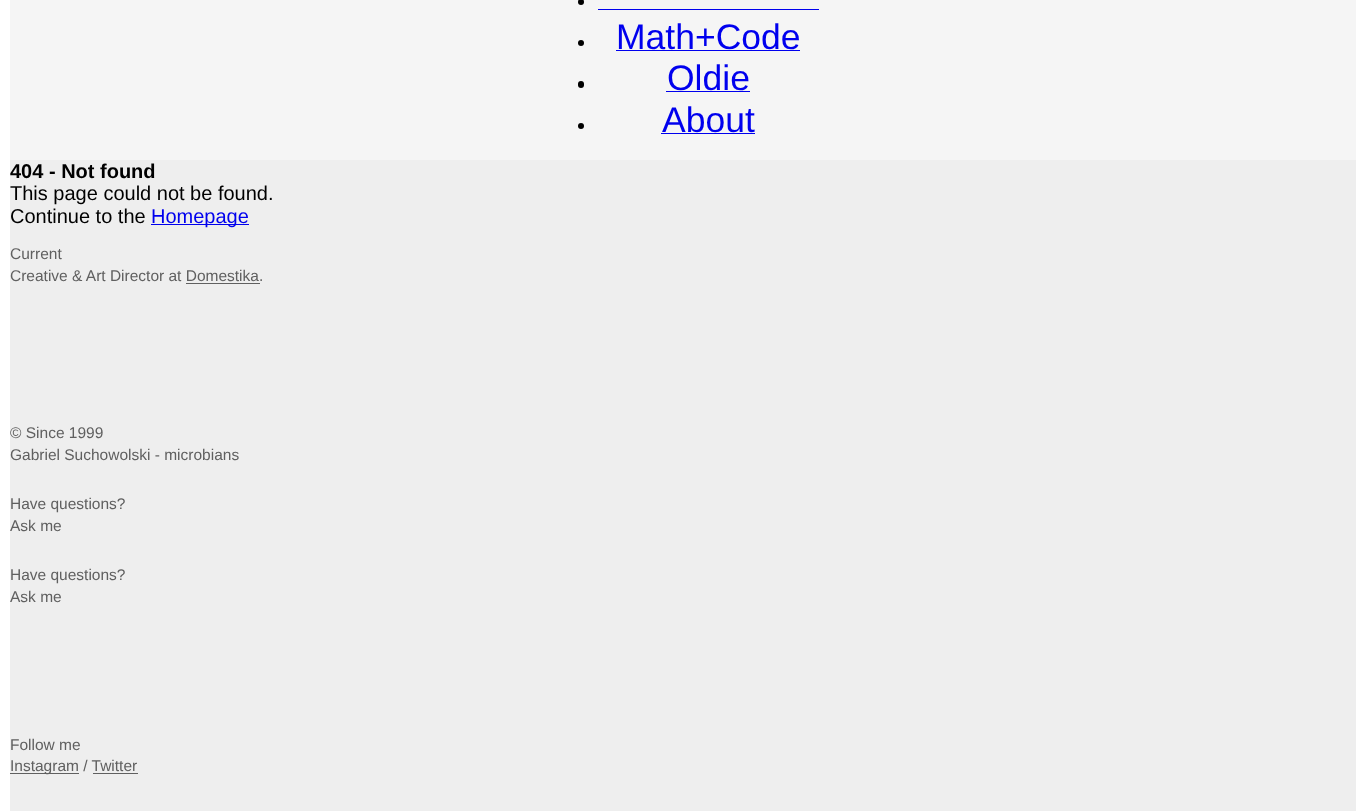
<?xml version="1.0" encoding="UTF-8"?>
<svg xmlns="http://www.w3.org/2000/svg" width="1366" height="811">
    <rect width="100%" height="100%" fill="#FFFFFF"/>
    <rect x="10" y="160" width="1346" height="651" fill="#EEEEEE"/>
    <rect x="10" y="0" width="1346" height="160" fill="#F5F5F5"/>
    <circle cx="581" cy="2" r="3" fill="#000000"/>
    <rect x="598" y="9" width="221" height="1" fill="#0000EE"/>
    <circle cx="581" cy="43" r="3" fill="#000000"/>
    <text x="616" y="49" font-family="Liberation Sans" font-size="35.5" fill="#0000EE">Math+Code</text>
    <rect x="616" y="50" width="184" height="1" fill="#0000EE"/>
    <rect x="578" y="81" width="6" height="7" rx="3" fill="#000000"/>
    <text x="667" y="90" font-family="Liberation Sans" font-size="35.5" fill="#0000EE">Oldie</text>
    <rect x="666" y="91" width="84" height="1" fill="#0000EE"/>
    <circle cx="581" cy="126" r="3" fill="#000000"/>
    <text x="662" y="132" font-family="Liberation Sans" font-size="35.5" fill="#0000EE">About</text>
    <rect x="661" y="133" width="94" height="1" fill="#0000EE"/>
    <text x="10" y="178" font-family="Liberation Sans" font-size="20" font-weight="700" fill="#000000">404 - Not found</text>
    <text font-family="Liberation Sans" font-size="20" fill="#000000">
        <tspan x="10" y="200">This page could not be found.</tspan>
        <tspan x="10" y="223">Continue to the</tspan>
    </text>
    <rect x="151" y="224" width="98" height="1" fill="#0000EE"/>
    <text x="151" y="223" font-family="Liberation Sans" font-size="20" fill="#0000EE">Homepage</text>
    <text font-family="Liberation Sans" font-size="15.5" fill="#606060">
        <tspan x="10" y="259">Current</tspan>
        <tspan x="10" y="281">Creative &amp; Art Director at Domestika.</tspan>
    </text>
    <rect x="186" y="283" width="74" height="1" fill="#606060"/>
    <text font-family="Liberation Sans" font-size="15.5" fill="#606060">
        <tspan x="10" y="438">© Since 1999</tspan>
        <tspan x="10" y="460">Gabriel Suchowolski - microbians</tspan>
    </text>
    <text font-family="Liberation Sans" font-size="15.5" fill="#606060">
        <tspan x="10" y="509">Have questions?</tspan>
        <tspan x="10" y="531">Ask me</tspan>
    </text>
    <text font-family="Liberation Sans" font-size="15.5" fill="#606060">
        <tspan x="10" y="580">Have questions?</tspan>
        <tspan x="10" y="602">Ask me</tspan>
    </text>
    <text x="10" y="750" font-family="Liberation Sans" font-size="15.5" fill="#606060">Follow me</text>
    <rect x="10" y="773" width="69" height="1" fill="#606060"/>
    <text x="10" y="771" font-family="Liberation Sans" font-size="15.5" fill="#606060">Instagram / Twitter</text>
    <rect x="93" y="773" width="45" height="1" fill="#606060"/>
</svg>
